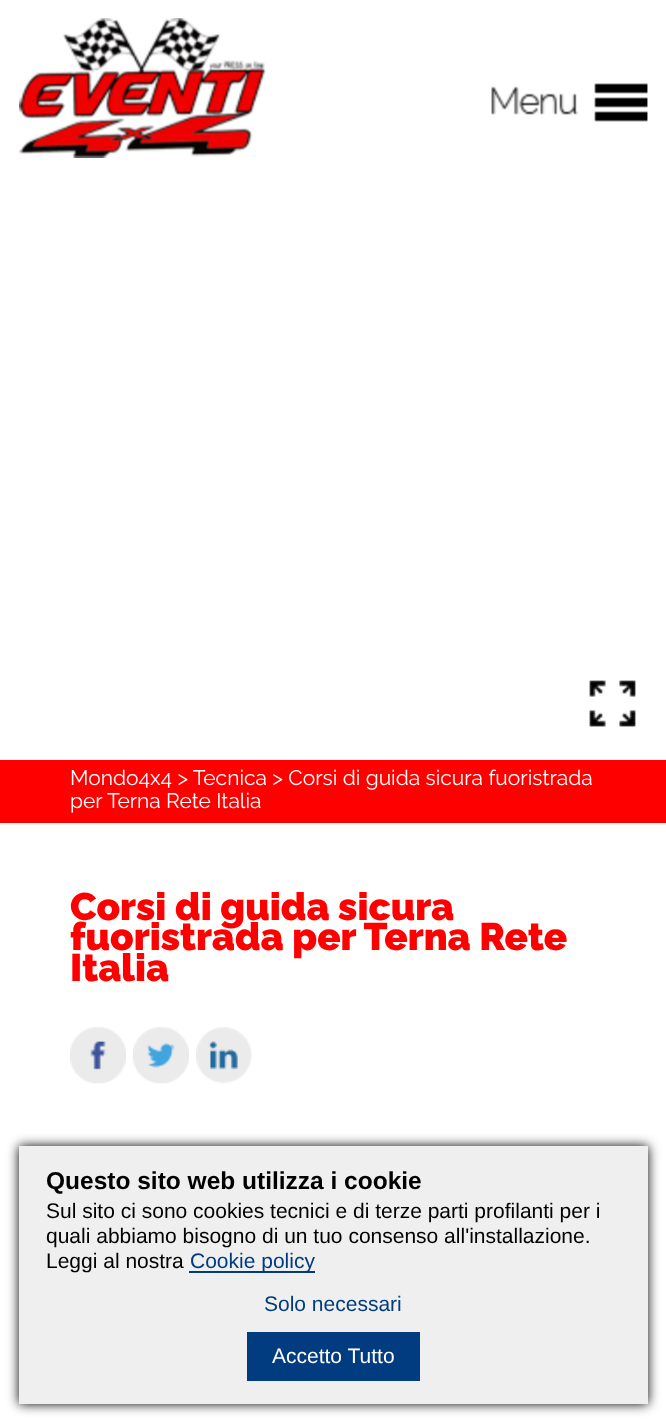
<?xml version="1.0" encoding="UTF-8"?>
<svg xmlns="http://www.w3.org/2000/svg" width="666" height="1421">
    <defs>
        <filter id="blur1" x="-50%" y="-200%" width="200%" height="500%"><feGaussianBlur stdDeviation="6"/></filter>
    </defs>
    <rect width="100%" height="100%" fill="#FFFFFF"/>
    <image x="589" y="680" width="47" height="47" href="img_01.png"/>
    <rect x="0" y="760" width="666" height="63" fill="#FF0000"/>
    <text font-family="Raleway" font-size="21" fill="#FFFFFF">
        <tspan x="70" y="785">Mondo4x4 &gt; Tecnica &gt; Corsi di guida sicura fuoristrada</tspan>
        <tspan x="70" y="808">per Terna Rete Italia</tspan>
    </text>
    <text font-family="Raleway" font-size="38.5" font-weight="900" fill="#FF0000">
        <tspan x="70" y="920">Corsi di guida sicura</tspan>
        <tspan x="70" y="950">fuoristrada per Terna Rete</tspan>
        <tspan x="70" y="981">Italia</tspan>
    </text>
    <image x="70" y="1027" width="56" height="57" href="img_02.png"/>
    <image x="133" y="1027" width="56" height="57" href="img_03.png"/>
    <image x="196" y="1027" width="56" height="57" href="img_04.png"/>
    <image x="19" y="18" width="247" height="140" href="img_05.png"/>
    <image x="491" y="83" width="157" height="39" href="img_06.png"/>
    <rect x="19" y="1146" width="629" height="258" fill="#000000" filter="url(#blur1)"/>
    <rect x="19" y="1146" width="629" height="258" fill="#EFEFEF"/>
    <text x="46" y="1189" font-family="Liberation Sans" font-size="24.5" font-weight="700" fill="#000000">Questo sito web utilizza i cookie</text>
    <text font-family="Liberation Sans" font-size="21" fill="#000000">
        <tspan x="46" y="1218">Sul sito ci sono cookies tecnici e di terze parti profilanti per i</tspan>
        <tspan x="46" y="1243">quali abbiamo bisogno di un tuo consenso all'installazione.</tspan>
        <tspan x="46" y="1268">Leggi al nostra</tspan>
    </text>
    <rect x="189" y="1271" width="126" height="2" fill="#003C7F"/>
    <text x="190" y="1268" font-family="Liberation Sans" font-size="21" fill="#003C7F">Cookie policy</text>
    <text x="264" y="1311" font-family="Liberation Sans" font-size="21" fill="#003C7F">Solo necessari</text>
    <rect x="247" y="1332" width="173" height="49" fill="#003C7F"/>
    <text x="272" y="1363" font-family="Liberation Sans" font-size="21" fill="#FFFFFF">Accetto Tutto</text>
</svg>
